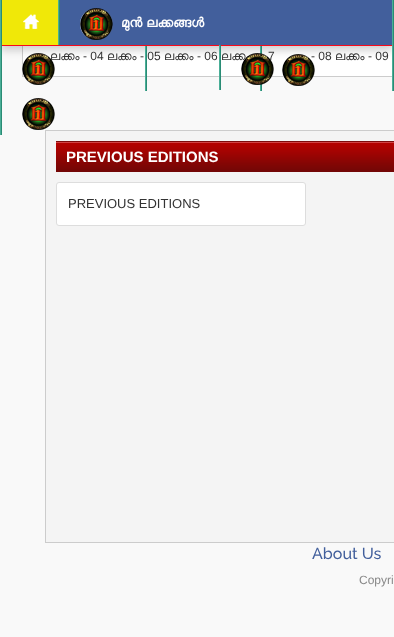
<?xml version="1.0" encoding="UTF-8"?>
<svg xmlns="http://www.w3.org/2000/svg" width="394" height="637">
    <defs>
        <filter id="blur1" x="-50%" y="-200%" width="200%" height="500%"><feGaussianBlur stdDeviation="4"/></filter>
    </defs>
    <rect width="100%" height="100%" fill="#F9F9F9"/>
    <rect x="23" y="46" width="369" height="30" fill="#FFFFFF"/>
    <rect x="22.5" y="-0.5" width="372" height="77" fill="none" stroke="#CCCCCC"/>
    <rect x="1" y="6" width="392" height="44" fill="#000000" fill-opacity="0.2" filter="url(#blur1)"/>
    <rect x="60" y="0" width="332" height="45" fill="#425F9C"/>
    <rect x="0" y="45" width="394" height="1" fill="#F9091A"/>
    <image x="392" y="0" width="2" height="46" href="img_01.png"/>
    <image x="0" y="0" width="2" height="45" href="img_02.png"/>
    <rect x="2" y="0" width="56" height="45" fill="#F0E808"/>
    <image x="23" y="14" width="16" height="15" href="img_03.png"/>
    <image x="58" y="0" width="2" height="45" href="img_02.png"/>
    <image x="80" y="8" width="33" height="32" href="img_04.png"/>
    <text x="121" y="27" word-spacing="-1" font-family="FreeSans" font-size="13" font-weight="700" fill="#FFFFFF">മുന്‍ ലക്കങ്ങള്‍</text>
    <image x="0" y="45" width="2" height="45" href="img_02.png"/>
    <text x="50" y="60" font-family="FreeSans" font-size="12" fill="#333333">ലക്കം</text>
    <image x="22" y="53" width="33" height="32" href="img_05.png"/>
    <image x="219" y="45" width="2" height="45" href="img_02.png"/>
    <image x="260" y="46" width="2" height="45" href="img_02.png"/>
    <text x="221" y="60" font-family="FreeSans" font-size="12" fill="#333333">ലക്കം</text>
    <text x="268" y="60" font-family="Liberation Sans" font-size="12" fill="#333333">7</text>
    <image x="241" y="53" width="33" height="32" href="img_06.png"/>
    <image x="0" y="90" width="2" height="45" href="img_02.png"/>
    <image x="22" y="98" width="33" height="32" href="img_07.png"/>
    <image x="392" y="46" width="2" height="45" href="img_02.png"/>
    <text x="140" y="60" font-family="Liberation Sans" font-size="12" fill="#333333">- 05</text>
    <image x="145" y="46" width="2" height="45" href="img_02.png"/>
    <text x="311" y="60" font-family="Liberation Sans" font-size="12" fill="#333333">- 08</text>
    <image x="282" y="54" width="33" height="32" href="img_08.png"/>
    <text x="83" y="60" font-family="Liberation Sans" font-size="12" fill="#333333">- 04</text>
    <text x="107" y="60" font-family="FreeSans" font-size="12" fill="#333333">ലക്കം</text>
    <text x="164" y="60" font-family="FreeSans" font-size="12" fill="#333333">ലക്കം</text>
    <text x="197" y="60" font-family="Liberation Sans" font-size="12" fill="#333333">- 06</text>
    <text x="335" y="60" font-family="FreeSans" font-size="12" fill="#333333">ലക്കം</text>
    <text x="368" y="60" font-family="Liberation Sans" font-size="12" fill="#333333">- 09</text>
    <rect x="45.5" y="130.5" width="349" height="412" fill="#F4F4F4" stroke="#CCCCCC"/>
    <image x="56" y="141" width="338" height="31" href="img_09.png"/>
    <text x="66" y="162" font-family="Liberation Sans" font-size="15" font-weight="700" fill="#FFFFFF">PREVIOUS EDITIONS</text>
    <rect x="56.5" y="182.5" width="249" height="43" rx="2.5" fill="#FFFFFF" stroke="#DDDDDD"/>
    <text x="68" y="208" font-family="Liberation Sans" font-size="13" fill="#333333">PREVIOUS EDITIONS</text>
    <text x="312" y="559" font-family="Raleway" font-size="16" font-weight="500" fill="#425F9C">About Us</text>
    <text x="359" y="584" font-family="Liberation Sans" font-size="12" fill="#888888">Copyri</text>
</svg>
